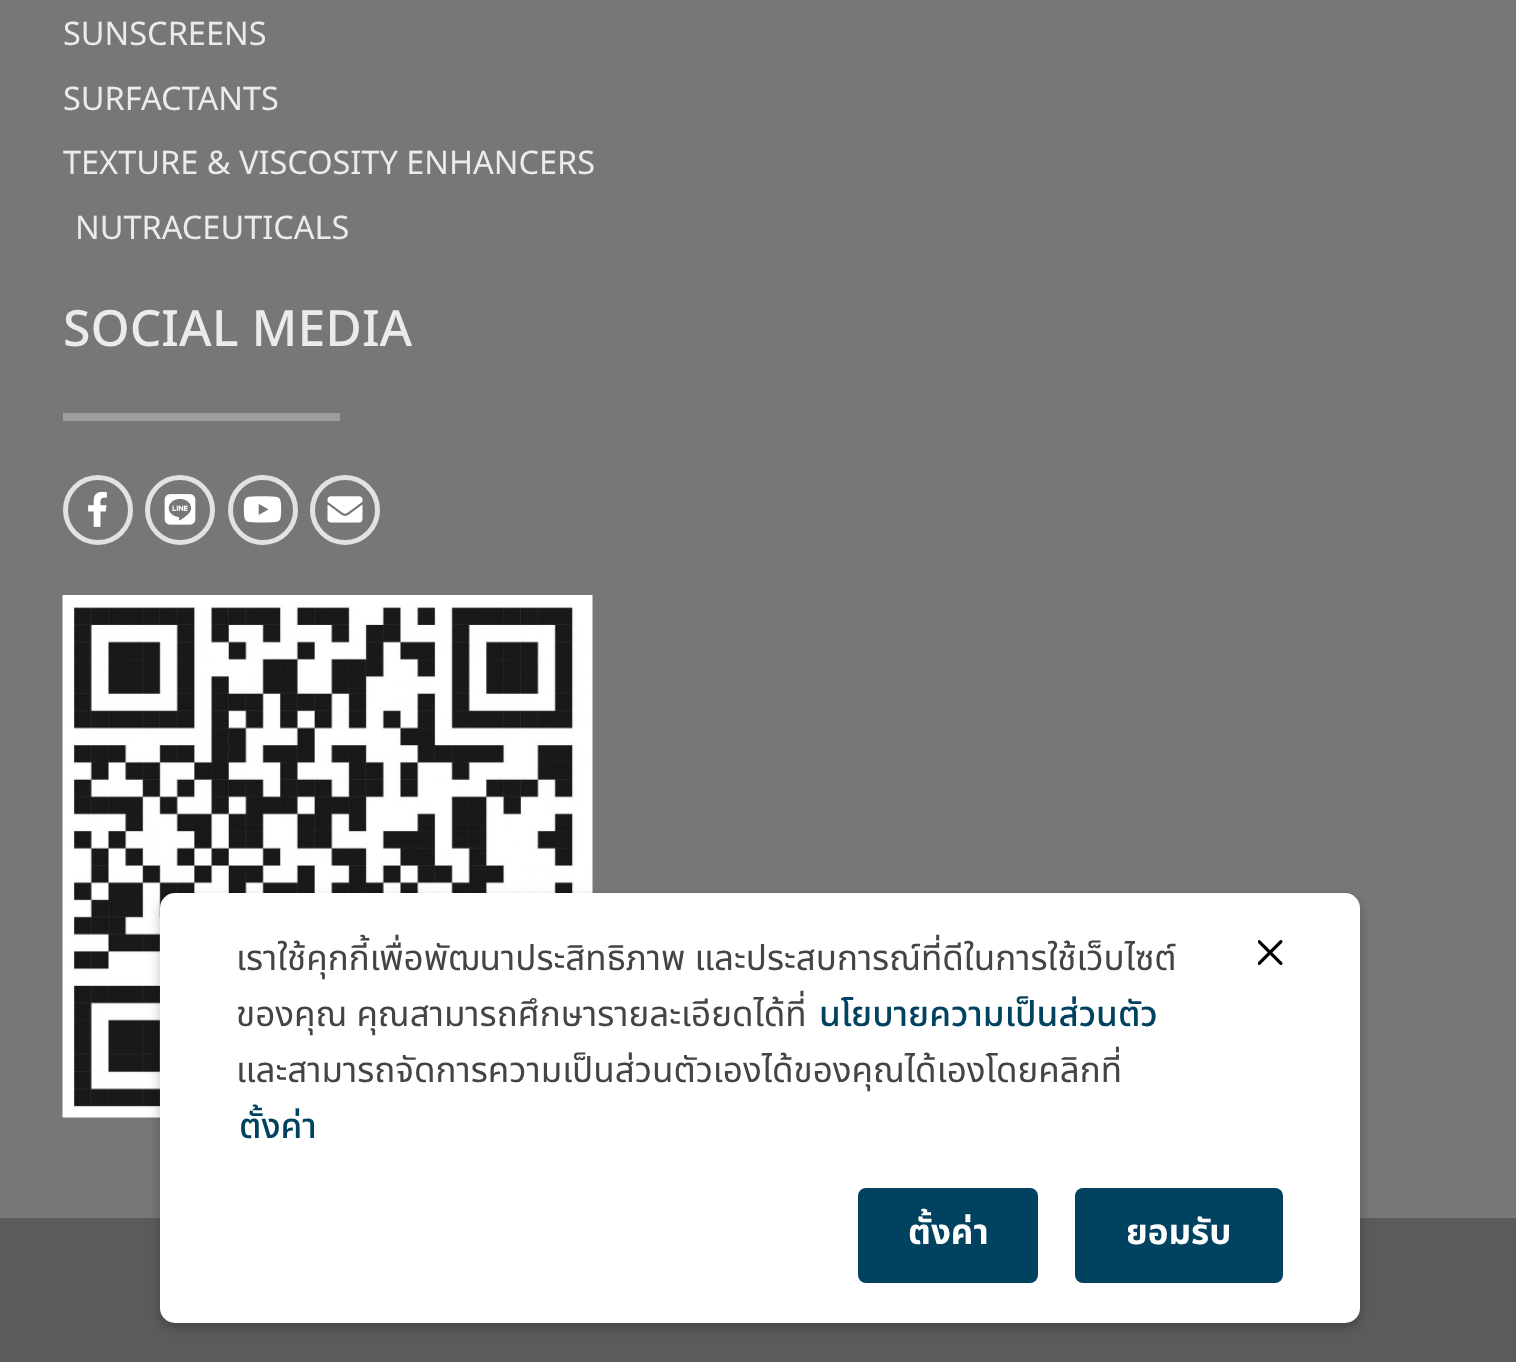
<?xml version="1.0" encoding="UTF-8"?>
<svg xmlns="http://www.w3.org/2000/svg" width="1516" height="1362">
    <defs>
        <filter id="blur1" x="-50%" y="-200%" width="200%" height="500%"><feGaussianBlur stdDeviation="6"/></filter>
    </defs>
    <rect width="100%" height="100%" fill="#777777"/>
    <text x="63" y="45" font-family="Noto Sans" font-size="32.5" fill="#EBEBEB">SUNSCREENS</text>
    <text font-family="Noto Sans" font-size="32.5" fill="#EBEBEB">
        <tspan x="63" y="110">SURFACTANTS</tspan>
        <tspan x="63" y="174">TEXTURE &amp; VISCOSITY ENHANCERS</tspan>
    </text>
    <text x="75" y="239" font-family="Noto Sans" font-size="32.5" fill="#EBEBEB">NUTRACEUTICALS</text>
    <text x="63" y="346" font-family="Noto Sans" font-size="50" font-weight="500" fill="#EBEBEB">SOCIAL MEDIA</text>
    <rect x="63" y="413" width="277" height="8" fill="#9D9D9D"/>
    <circle cx="98" cy="510" r="32.5" fill="none" stroke="#E2E2E2" stroke-width="5"/>
    <image x="88" y="491" width="19" height="36" href="img_01.png"/>
    <circle cx="180" cy="510" r="32.5" fill="none" stroke="#E2E2E2" stroke-width="5"/>
    <image x="164" y="494" width="32" height="31" href="img_02.png"/>
    <circle cx="263" cy="510" r="32.5" fill="none" stroke="#E2E2E2" stroke-width="5"/>
    <image x="243" y="496" width="39" height="27" href="img_03.png"/>
    <circle cx="345" cy="510" r="32.5" fill="none" stroke="#E2E2E2" stroke-width="5"/>
    <image x="327" y="496" width="36" height="27" href="img_04.png"/>
    <image x="62" y="595" width="531" height="523" href="img_05.png"/>
    <rect x="0" y="1218" width="1516" height="144" fill="#5B5B5B"/>
    <rect x="160" y="898" width="1200" height="430" rx="15" fill="#000000" fill-opacity="0.25" filter="url(#blur1)"/>
    <rect x="160" y="893" width="1200" height="430" rx="15" fill="#FFFFFF"/>
    <text font-family="Noto Sans Thai" font-size="35" fill="#444444">
        <tspan x="236" y="970">เราใช้คุกกี้เพื่อพัฒนาประสิทธิภาพ และประสบการณ์ที่ดีในการใช้เว็บไซต์</tspan>
        <tspan x="236" y="1026">ของคุณ คุณสามารถศึกษารายละเอียดได้ที่</tspan>
    </text>
    <text x="819" y="1026" font-family="Noto Sans Thai" font-size="35" font-weight="500" fill="#014260">นโยบายความเป็นส่วนตัว</text>
    <text x="236" y="1082" font-family="Noto Sans Thai" font-size="35" fill="#444444">และสามารถจัดการความเป็นส่วนตัวเองได้ของคุณได้เองโดยคลิกที่</text>
    <text x="239" y="1138" font-family="Noto Sans Thai" font-size="35" font-weight="500" fill="#014260">ตั้งค่า</text>
    <image x="1258" y="940" width="25" height="25" href="img_06.png"/>
    <rect x="858" y="1188" width="180" height="95" rx="8" fill="#014260"/>
    <text x="908" y="1244" font-family="Noto Sans Thai" font-size="35" font-weight="700" fill="#FFFFFF">ตั้งค่า</text>
    <rect x="1075" y="1188" width="208" height="95" rx="8" fill="#014260"/>
    <text x="1126" y="1244" font-family="Noto Sans Thai" font-size="35" font-weight="700" fill="#FFFFFF">ยอมรับ</text>
</svg>
